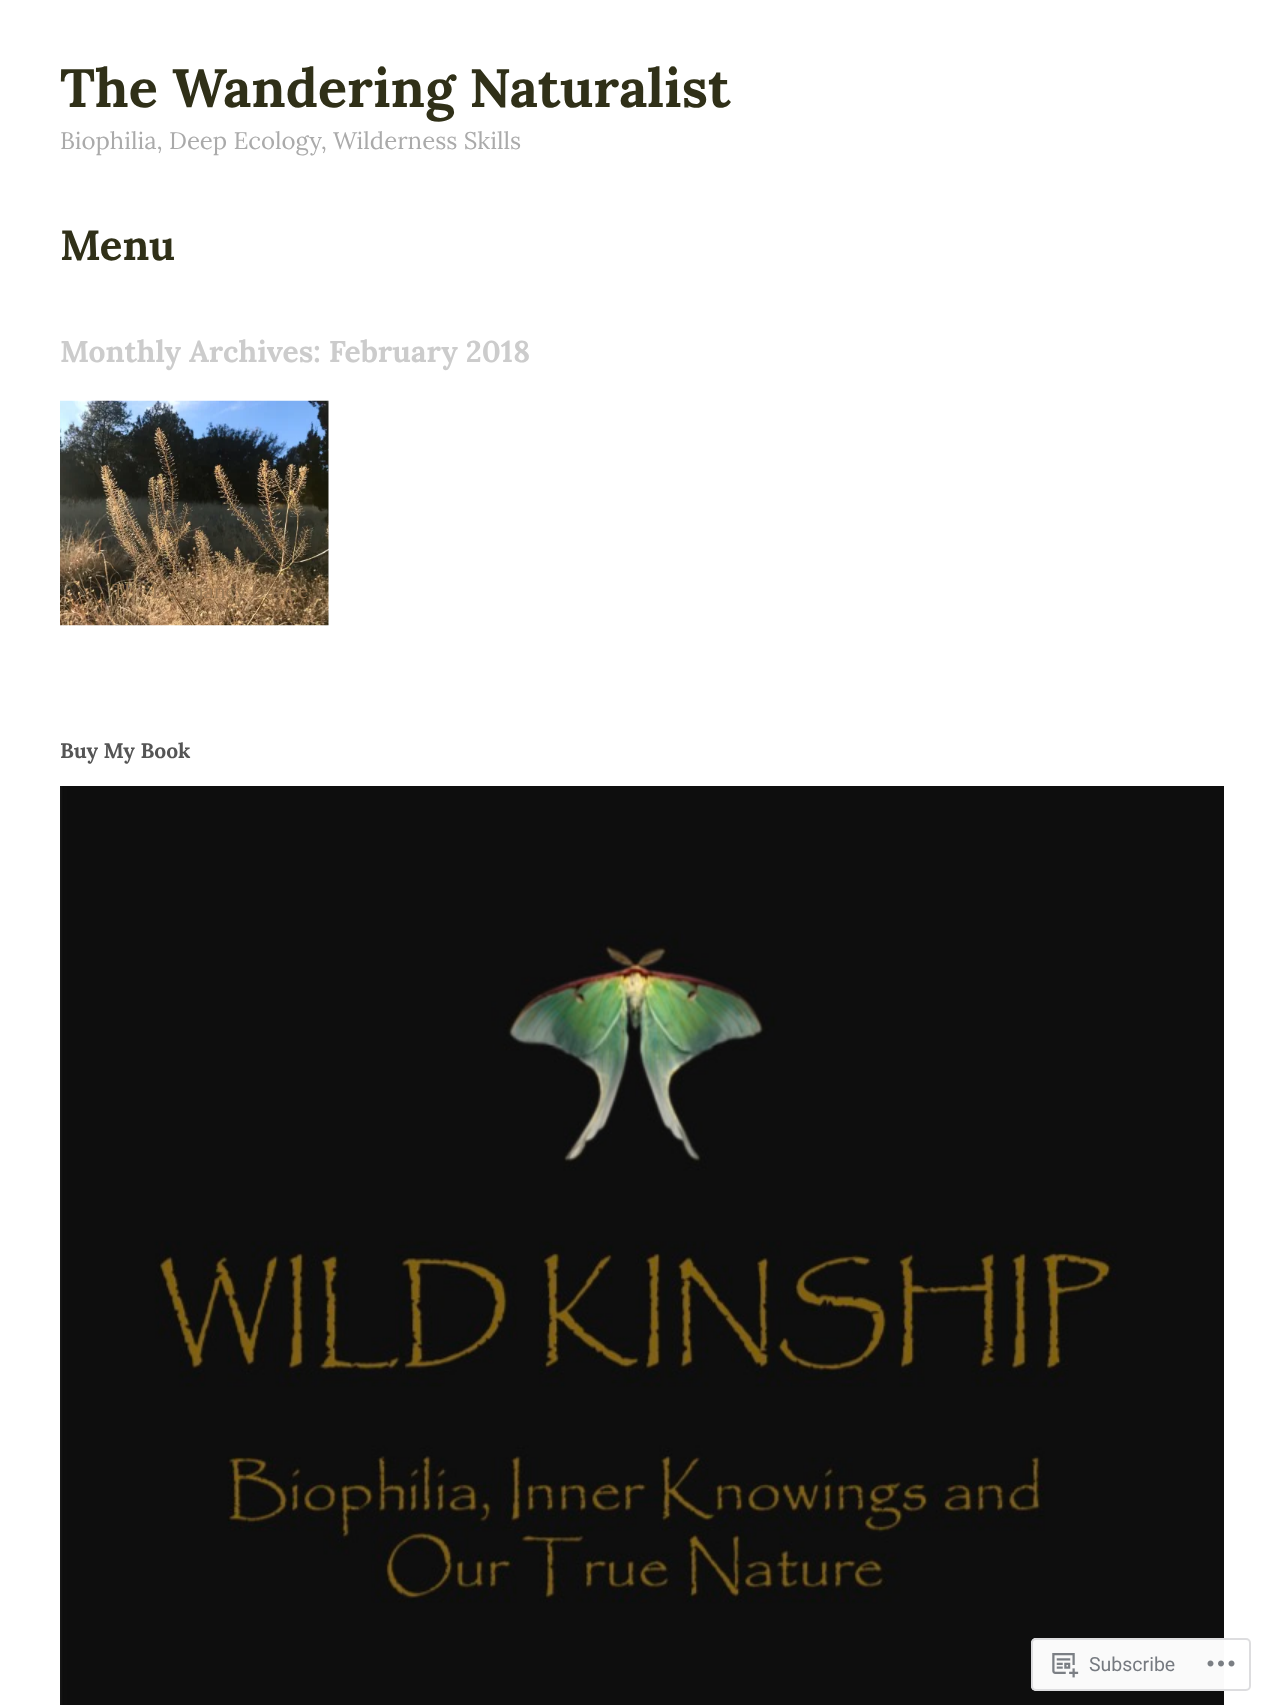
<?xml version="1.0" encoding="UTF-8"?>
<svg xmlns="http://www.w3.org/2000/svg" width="1265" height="1705">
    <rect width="100%" height="100%" fill="#FFFFFF"/>
    <text x="60" y="107" font-family="Lora" font-size="54" font-weight="700" fill="#303018">The Wandering Naturalist</text>
    <text x="60" y="149" font-family="Lora" font-size="24" fill="#AAAAAA">Biophilia, Deep Ecology, Wilderness Skills</text>
    <text x="60" y="260" font-family="Lora" font-size="42" font-weight="700" fill="#303018">Menu</text>
    <text x="60" y="362" font-family="Lora" font-size="30" font-weight="700" fill="#CCCCCC">Monthly Archives: February 2018</text>
    <image x="60" y="400" width="269" height="226" href="img_01.png"/>
    <text x="112" y="598" font-family="Lora" font-size="19.5" fill="#967754">The Dormancy Dance</text>
    <text x="60" y="758" font-family="Lora" font-size="21" font-weight="700" fill="#555555">Buy My Book</text>
    <image x="60" y="786" width="1164" height="919" href="img_02.png"/>
    <rect x="1031" y="1638" width="220" height="53" rx="5" fill="#FFFFFF" fill-opacity="0.98"/>
    <rect x="1032" y="1639" width="218" height="51" rx="4" fill="none" stroke="#DCDCDE" stroke-opacity="0.98" stroke-width="2"/>
    <image x="1052" y="1653" width="27" height="25" href="img_03.png"/>
    <text x="1089" y="1671" font-family="Roboto" font-size="19.5" fill="#767A80">Subscribe</text>
    <image x="1207" y="1660" width="28" height="7" href="img_04.png"/>
</svg>
